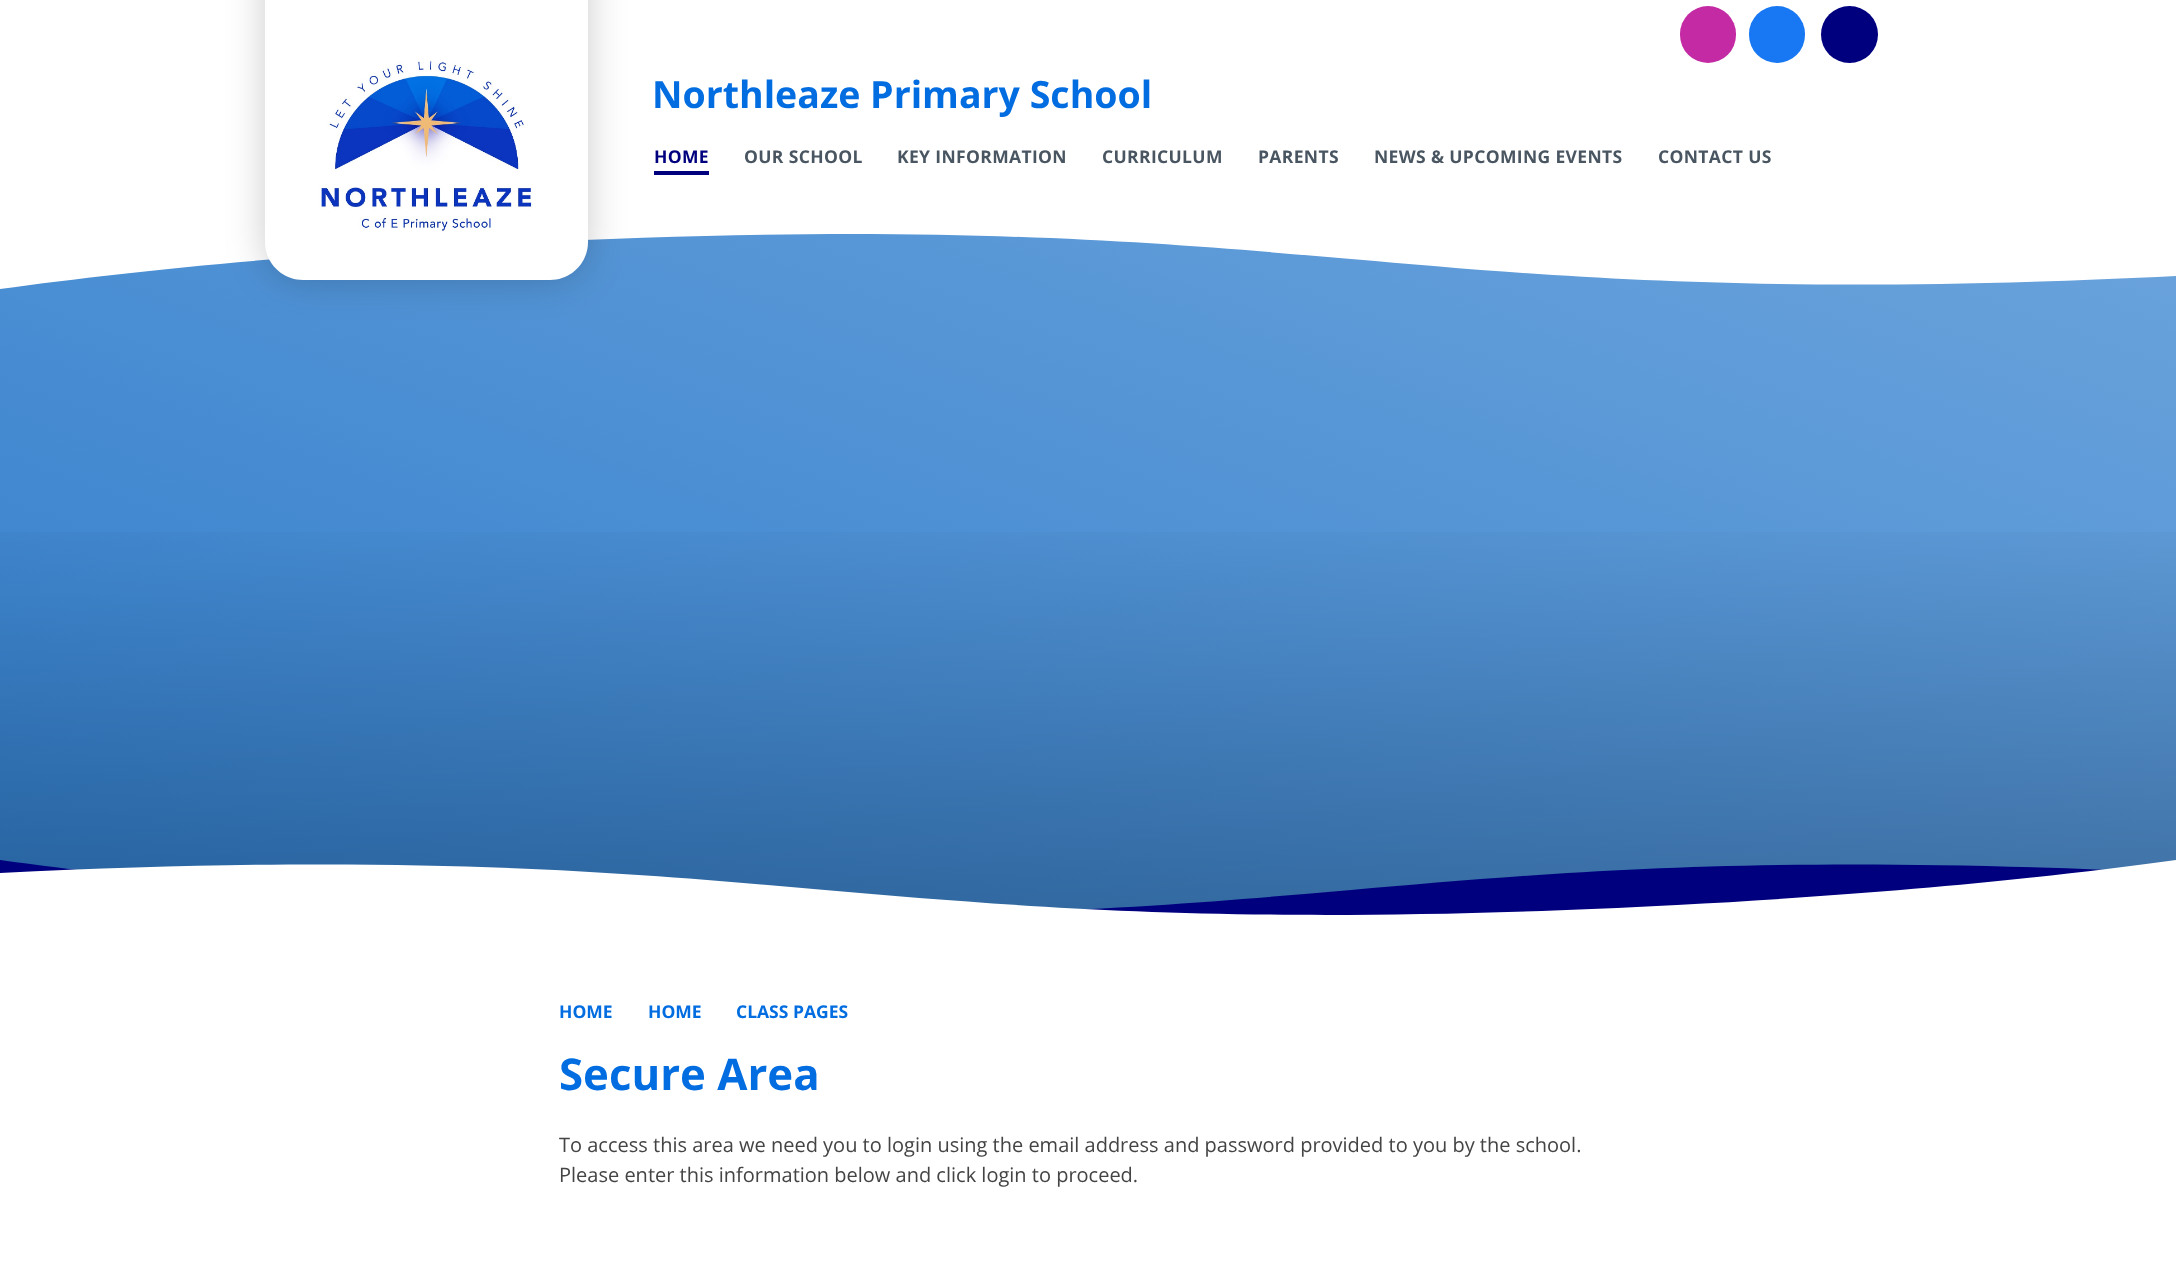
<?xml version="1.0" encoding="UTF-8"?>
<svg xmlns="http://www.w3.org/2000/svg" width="2176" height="1283">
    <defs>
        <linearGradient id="g1" gradientUnits="userSpaceOnUse" x1="1338" y1="-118" x2="839" y2="1254"><stop offset="0" stop-color="#6CA4DC"/><stop offset="1" stop-color="#307DCC"/></linearGradient>
        <filter id="blur1" x="-50%" y="-200%" width="200%" height="500%"><feGaussianBlur stdDeviation="19"/></filter>
        <linearGradient id="g2" gradientUnits="userSpaceOnUse" x1="1088" y1="949" x2="1088" y2="493"><stop offset="0" stop-color="#000000" stop-opacity="0.25"/><stop offset="1" stop-color="#000000" stop-opacity="0"/></linearGradient>
        <clipPath id="clip1"><rect x="0" y="860" width="2176" height="89"/></clipPath>
    </defs>
    <rect width="100%" height="100%" fill="#FFFFFF"/>
    <rect x="0" y="234" width="2176" height="676" fill="url(#g1)"/>
    <path d="M 0 199 V 289 C 131 271 290 255 500 244 C 923 222 1141 241 1351 259 C 1557 277 1770 296 2176 276 V 199 Z" fill="#FFFFFF"/>
    <rect x="265" y="-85" width="323" height="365" rx="38" fill="#000000" fill-opacity="0.2" filter="url(#blur1)"/>
    <path d="M 265 -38 H 588 V 242 C 588 263 571 280 550 280 H 303 C 282 280 265 263 265 242 Z" fill="#FFFFFF"/>
    <image x="319" y="59" width="214" height="173" href="img_01.png"/>
    <text x="652" y="108" font-family="Open Sans" font-size="37.5" font-weight="700" fill="#026DE0">Northleaze Primary School</text>
    <rect x="1680" y="6" width="56" height="57" rx="28" fill="#C32AA3"/>
    <rect x="1749" y="6" width="56" height="57" rx="28" fill="#1877F2"/>
    <circle cx="1849.5" cy="34.5" r="28.5" fill="#00007F"/>
    <text x="654" y="163" font-family="Open Sans" font-size="17.5" font-weight="700" letter-spacing="0.35" fill="#00007F">HOME</text>
    <rect x="654" y="171" width="55" height="4" fill="#00007F"/>
    <text x="744" y="163" font-family="Open Sans" font-size="17.5" font-weight="700" letter-spacing="0.35" fill="#495661">OUR SCHOOL</text>
    <text x="897" y="163" font-family="Open Sans" font-size="17.5" font-weight="700" letter-spacing="0.35" fill="#495661">KEY INFORMATION</text>
    <text x="1102" y="163" font-family="Open Sans" font-size="17.5" font-weight="700" letter-spacing="0.35" fill="#495661">CURRICULUM</text>
    <text x="1258" y="163" font-family="Open Sans" font-size="17.5" font-weight="700" letter-spacing="0.35" fill="#495661">PARENTS</text>
    <text x="1374" y="163" font-family="Open Sans" font-size="17.5" font-weight="700" letter-spacing="0.35" fill="#495661">NEWS &amp; UPCOMING EVENTS</text>
    <text x="1658" y="163" font-family="Open Sans" font-size="17.5" font-weight="700" letter-spacing="0.35" fill="#495661">CONTACT US</text>
    <rect x="0" y="532" width="2176" height="378" fill="url(#g2)"/>
    <g clip-path="url(#clip1)">
        <path d="M 0 950 V 860 C 131 878 290 894 500 905 C 923 927 1141 908 1351 890 C 1557 872 1770 853 2176 873 V 950 Z" fill="#00007F"/>
        <path d="M 2176 950 V 860 C 2045 878 1887 894 1677 905 C 1253 927 1036 908 825 890 C 619 872 406 853 0 873 V 950 Z" fill="#FFFFFF"/>
    </g>
    <text x="559" y="1018" font-family="Open Sans" font-size="17.5" font-weight="700" fill="#026DE0">HOME</text>
    <text x="648" y="1018" font-family="Open Sans" font-size="17.5" font-weight="700" fill="#026DE0">HOME</text>
    <text x="736" y="1018" font-family="Open Sans" font-size="17.5" font-weight="700" fill="#026DE0">CLASS PAGES</text>
    <text x="559" y="1090" font-family="Open Sans" font-size="43.75" font-weight="700" fill="#026DE0">Secure Area</text>
    <text font-family="Open Sans" font-size="20" fill="#444444">
        <tspan x="559" y="1152">To access this area we need you to login using the email address and password provided to you by the school.</tspan>
        <tspan x="559" y="1182">Please enter this information below and click login to proceed.</tspan>
    </text>
</svg>
